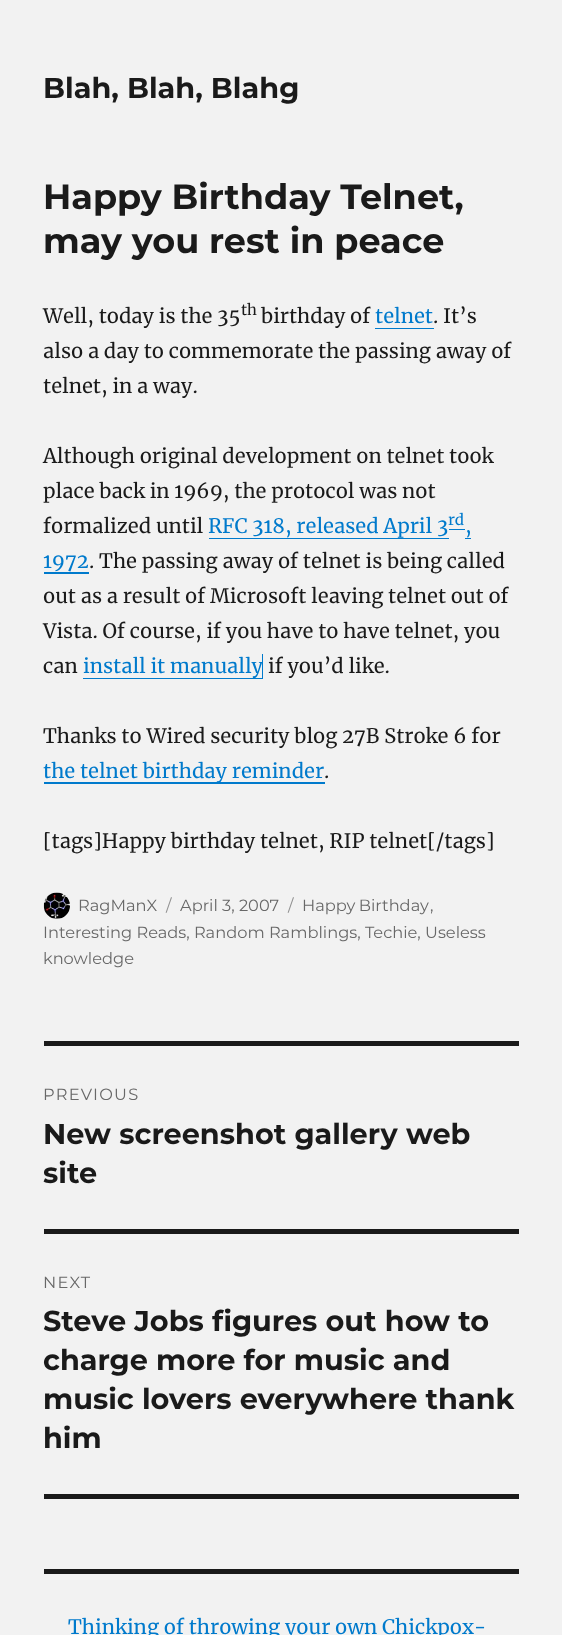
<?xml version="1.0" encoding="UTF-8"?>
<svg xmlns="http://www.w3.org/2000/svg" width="562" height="1635">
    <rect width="100%" height="100%" fill="#F2F2F2"/>
    <text x="43" y="98" font-family="'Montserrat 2'" font-size="28.75" font-weight="100" fill="#1A1A1A">Blah, Blah, Blahg</text>
    <text font-family="'Montserrat 2'" font-size="35" font-weight="100" fill="#1A1A1A">
        <tspan x="43" y="209">Happy Birthday Telnet,</tspan>
        <tspan x="43" y="253">may you rest in peace</tspan>
    </text>
    <text x="43" y="323" font-family="Merriweather" font-size="20" fill="#1A1A1A">Well, today is the 35</text>
    <text x="241" y="315" font-family="Merriweather" font-size="15" fill="#1A1A1A">th</text>
    <text x="261" y="323" font-family="Merriweather" font-size="20" fill="#1A1A1A">birthday of</text>
    <text x="375" y="323" font-family="Merriweather" font-size="20" fill="#007ACC">telnet</text>
    <path d="M 375 328 V 329 H 434 V 304 V 328 Z" fill="#007ACC"/>
    <text x="433" y="323" font-family="Merriweather" font-size="20" fill="#1A1A1A">. It’s</text>
    <text font-family="Merriweather" font-size="20" fill="#1A1A1A">
        <tspan x="43" y="358">also a day to commemorate the passing away of</tspan>
        <tspan x="43" y="393">telnet, in a way.</tspan>
    </text>
    <text font-family="Merriweather" font-size="20" fill="#1A1A1A">
        <tspan x="43" y="463">Although original development on telnet took</tspan>
        <tspan x="43" y="498">place back in 1969, the protocol was not</tspan>
        <tspan x="43" y="533">formalized until</tspan>
    </text>
    <text x="208" y="533" font-family="Merriweather" font-size="20" fill="#007ACC">RFC 318, released April 3</text>
    <path d="M 209 538 V 539 H 449 V 514 V 538 Z" fill="#007ACC"/>
    <rect x="449" y="529" width="16" height="1" fill="#007ACC"/>
    <text x="448" y="525" font-family="Merriweather" font-size="15" fill="#007ACC">rd</text>
    <text x="465" y="533" font-family="Merriweather" font-size="20" fill="#007ACC">,</text>
    <rect x="465" y="538" width="6" height="1" fill="#007ACC"/>
    <text x="43" y="568" font-family="Merriweather" font-size="20" fill="#007ACC">1972</text>
    <path d="M 44 572 V 574 H 89 V 549 V 572 Z" fill="#007ACC"/>
    <text x="89" y="568" font-family="Merriweather" font-size="20" fill="#1A1A1A">. The passing away of telnet is being called</text>
    <text font-family="Merriweather" font-size="20" fill="#1A1A1A">
        <tspan x="43" y="603">out as a result of Microsoft leaving telnet out of</tspan>
        <tspan x="43" y="638">Vista. Of course, if you have to have telnet, you</tspan>
        <tspan x="43" y="673">can</tspan>
    </text>
    <path d="M 83 678 V 679 H 263 V 654 H 262 V 678 Z" fill="#007ACC"/>
    <text x="83" y="673" font-family="Merriweather" font-size="20" fill="#007ACC">install it manually</text>
    <text x="268" y="673" font-family="Merriweather" font-size="20" fill="#1A1A1A">if you’d like.</text>
    <text x="43" y="743" font-family="Merriweather" font-size="20" fill="#1A1A1A">Thanks to Wired security blog 27B Stroke 6 for</text>
    <rect x="44" y="782" width="281" height="2" fill="#007ACC"/>
    <text x="43" y="778" font-family="Merriweather" font-size="20" fill="#007ACC">the telnet birthday reminder</text>
    <text x="324" y="778" font-family="Merriweather" font-size="20" fill="#1A1A1A">.</text>
    <text x="43" y="848" font-family="Merriweather" font-size="20" fill="#1A1A1A">[tags]Happy birthday telnet, RIP telnet[/tags]</text>
    <image x="43" y="892" width="27" height="27" href="img_01.png"/>
    <text x="78" y="911" font-family="Montserrat" font-size="16.25" font-weight="100" fill="#686868">RagManX</text>
    <text x="166" y="911" font-family="Montserrat" font-size="16.25" font-weight="100" fill="#919191">/</text>
    <text x="180" y="911" font-family="Montserrat" font-size="16.25" font-weight="100" fill="#686868">April 3, 2007</text>
    <text x="288" y="911" font-family="Montserrat" font-size="16.25" font-weight="100" fill="#919191">/</text>
    <text x="302" y="911" word-spacing="-1" font-family="Montserrat" font-size="16.25" font-weight="100" fill="#686868">Happy Birthday</text>
    <text x="430" y="911" font-family="Montserrat" font-size="16.25" font-weight="100" fill="#686868">,</text>
    <text font-family="Montserrat" font-size="16.25" font-weight="100" fill="#686868">
        <tspan x="43" y="938">Interesting Reads, Random Ramblings, Techie, Useless</tspan>
        <tspan x="43" y="964">knowledge</tspan>
    </text>
    <rect x="44" y="1041" width="475" height="5" fill="#1A1A1A"/>
    <rect x="44" y="1494" width="475" height="5" fill="#1A1A1A"/>
    <text x="43" y="1100" font-family="Montserrat" font-size="16.25" font-weight="100" letter-spacing="1.25" fill="#686868">PREVIOUS</text>
    <text font-family="'Montserrat 2'" font-size="28.75" font-weight="100" fill="#1A1A1A">
        <tspan x="43" y="1144">New screenshot gallery web</tspan>
        <tspan x="43" y="1183">site</tspan>
    </text>
    <rect x="44" y="1229" width="475" height="5" fill="#1A1A1A"/>
    <text x="43" y="1288" font-family="Montserrat" font-size="16.25" font-weight="100" letter-spacing="1.25" fill="#686868">NEXT</text>
    <text font-family="'Montserrat 2'" font-size="28.75" font-weight="100" fill="#1A1A1A">
        <tspan x="43" y="1331">Steve Jobs figures out how to</tspan>
        <tspan x="43" y="1370">charge more for music and</tspan>
        <tspan x="43" y="1409">music lovers everywhere thank</tspan>
        <tspan x="43" y="1448">him</tspan>
    </text>
    <rect x="44" y="1569" width="475" height="5" fill="#1A1A1A"/>
    <text x="68" y="1634" font-family="Merriweather" font-size="20" fill="#007ACC">Thinking of throwing your own Chickpox-</text>
</svg>
